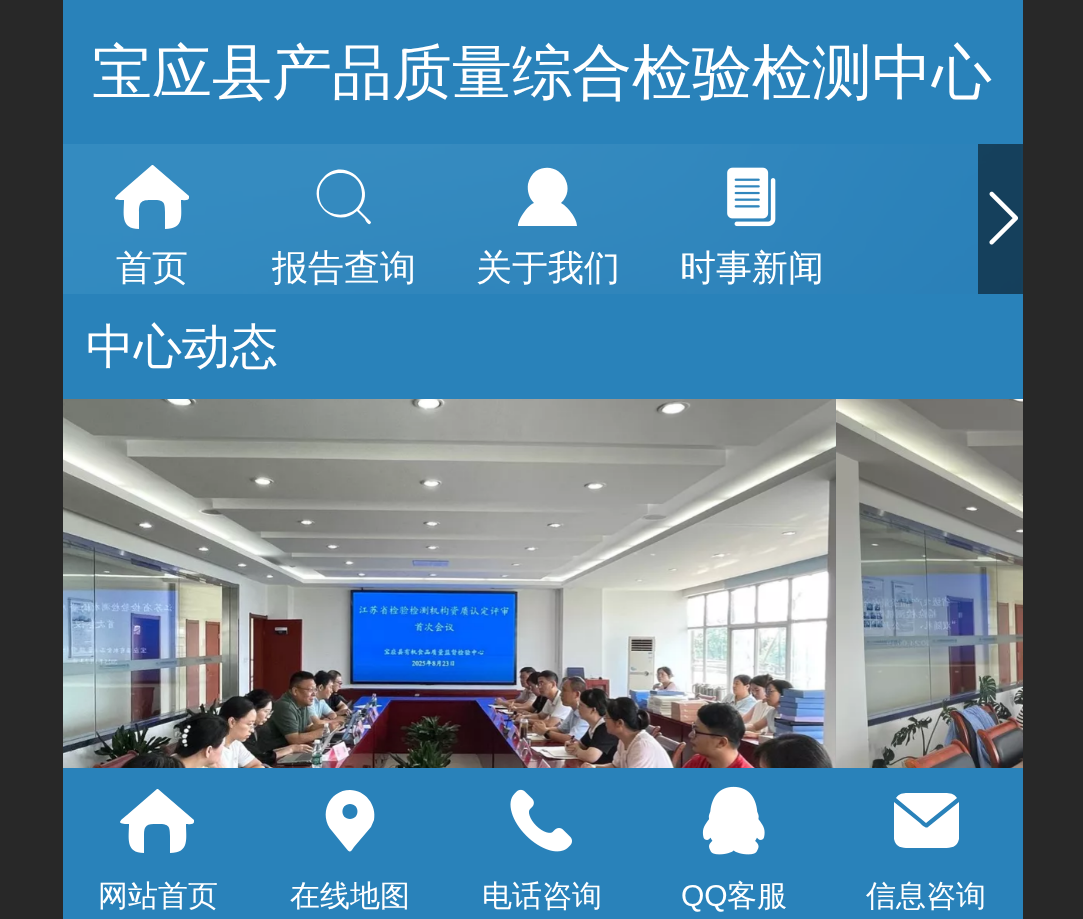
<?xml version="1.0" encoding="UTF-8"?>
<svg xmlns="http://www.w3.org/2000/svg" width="1083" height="919">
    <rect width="100%" height="100%" fill="#FFFFFF"/>
    <rect x="0" y="0" width="63" height="919" fill="#282828"/>
    <rect x="63" y="0" width="960" height="144" fill="#2982BA"/>
    <text x="92" y="93" font-family="WenQuanYi Zen Hei" font-size="60" font-weight="500" fill="#FFFFFF">宝应县产品质量综合检验检测中心</text>
    <image x="63" y="144" width="960" height="624" href="img_03.png"/>
    <rect x="63" y="144" width="960" height="150" fill="#2982BA" fill-opacity="0.9"/>
    <path d="M 189 196 L 153 165 H 152 L 122 191 C 113 199 112 200 124 200 C 124 213 120 229 139 229 V 212 C 139 201 142 200 152 200 C 163 200 165 201 165 212 V 229 C 185 229 181 215 181 200 C 183 200 189 201 189 198 Z" fill="#FFFFFF"/>
    <text x="116" y="280" font-family="WenQuanYi Zen Hei" font-size="36" font-weight="500" fill="#FFFFFF">首页</text>
    <path d="M 371 222 L 359 210 C 379 187 345 155 324 177 C 302 198 334 232 357 211 L 365 219 C 365 220 368 225 370 224 C 371 223 371 222 371 222 Z M 319 194 C 319 166 362 166 362 194 C 362 221 319 222 319 194 Z" fill="#FFFFFF"/>
    <text x="272" y="280" font-family="WenQuanYi Zen Hei" font-size="36" font-weight="500" fill="#FFFFFF">报告查询</text>
    <path d="M 577 226 C 577 218 567 206 561 203 C 579 186 557 158 536 171 C 532 174 529 179 528 184 C 527 191 529 198 534 203 C 528 205 518 219 518 226 Z" fill="#FFFFFF"/>
    <text x="476" y="280" font-family="WenQuanYi Zen Hei" font-size="36" font-weight="500" fill="#FFFFFF">关于我们</text>
    <image x="727" y="167" width="49" height="60" href="img_01.png"/>
    <text x="680" y="280" font-family="WenQuanYi Zen Hei" font-size="36" font-weight="500" fill="#FFFFFF">时事新闻</text>
    <rect x="978" y="144" width="45" height="150" fill="#000000" fill-opacity="0.5"/>
    <image x="989" y="191" width="30" height="54" href="img_02.png"/>
    <rect x="63" y="294" width="960" height="105" fill="#2982BA"/>
    <text x="86" y="363" font-family="WenQuanYi Zen Hei" font-size="48" font-weight="500" fill="#FFFFFF">中心动态</text>
    <image x="63" y="399" width="773" height="369" href="img_04.png"/>
    <image x="836" y="399" width="187" height="369" href="img_05.png"/>
    <rect x="63" y="768" width="960" height="151" fill="#2982BA"/>
    <path d="M 194 820 L 158 789 H 157 L 127 815 C 118 822 117 824 129 824 C 129 837 125 853 144 853 V 835 C 144 825 147 824 157 824 C 168 824 170 825 170 836 V 853 C 190 853 186 838 186 824 C 188 824 194 825 194 822 Z" fill="#FFFFFF"/>
    <text x="98" y="906" font-family="WenQuanYi Zen Hei" font-size="30" font-weight="500" fill="#FFFFFF">网站首页</text>
    <path d="M 350 790 C 329 790 318 815 332 831 L 345 847 C 350 853 350 853 354 847 L 371 827 L 374 820 C 377 805 365 790 350 790 Z M 350 819 C 340 819 340 804 350 804 C 360 804 360 819 350 819 Z" fill="#FFFFFF"/>
    <text x="290" y="906" font-family="WenQuanYi Zen Hei" font-size="30" font-weight="500" fill="#FFFFFF">在线地图</text>
    <image x="510" y="789" width="62" height="63" href="img_06.png"/>
    <text x="482" y="906" font-family="WenQuanYi Zen Hei" font-size="30" font-weight="500" fill="#FFFFFF">电话咨询</text>
    <image x="702" y="786" width="63" height="69" href="img_07.png"/>
    <text x="681" y="906" font-family="Liberation Sans" font-size="30" fill="#FFFFFF">QQ</text>
    <text x="727" y="906" font-family="WenQuanYi Zen Hei" font-size="30" font-weight="500" fill="#FFFFFF">客服</text>
    <path d="M 926 823 L 957 798 C 953 792 947 793 940 793 H 912 C 906 793 900 792 896 798 Z M 928 827 C 926 829 922 825 920 823 L 894 802 V 839 C 896 849 905 848 912 848 H 940 C 948 848 957 849 959 839 V 802 Z" fill="#FFFFFF"/>
    <text x="866" y="906" font-family="WenQuanYi Zen Hei" font-size="30" font-weight="500" fill="#FFFFFF">信息咨询</text>
    <rect x="1023" y="0" width="60" height="919" fill="#282828"/>
</svg>
